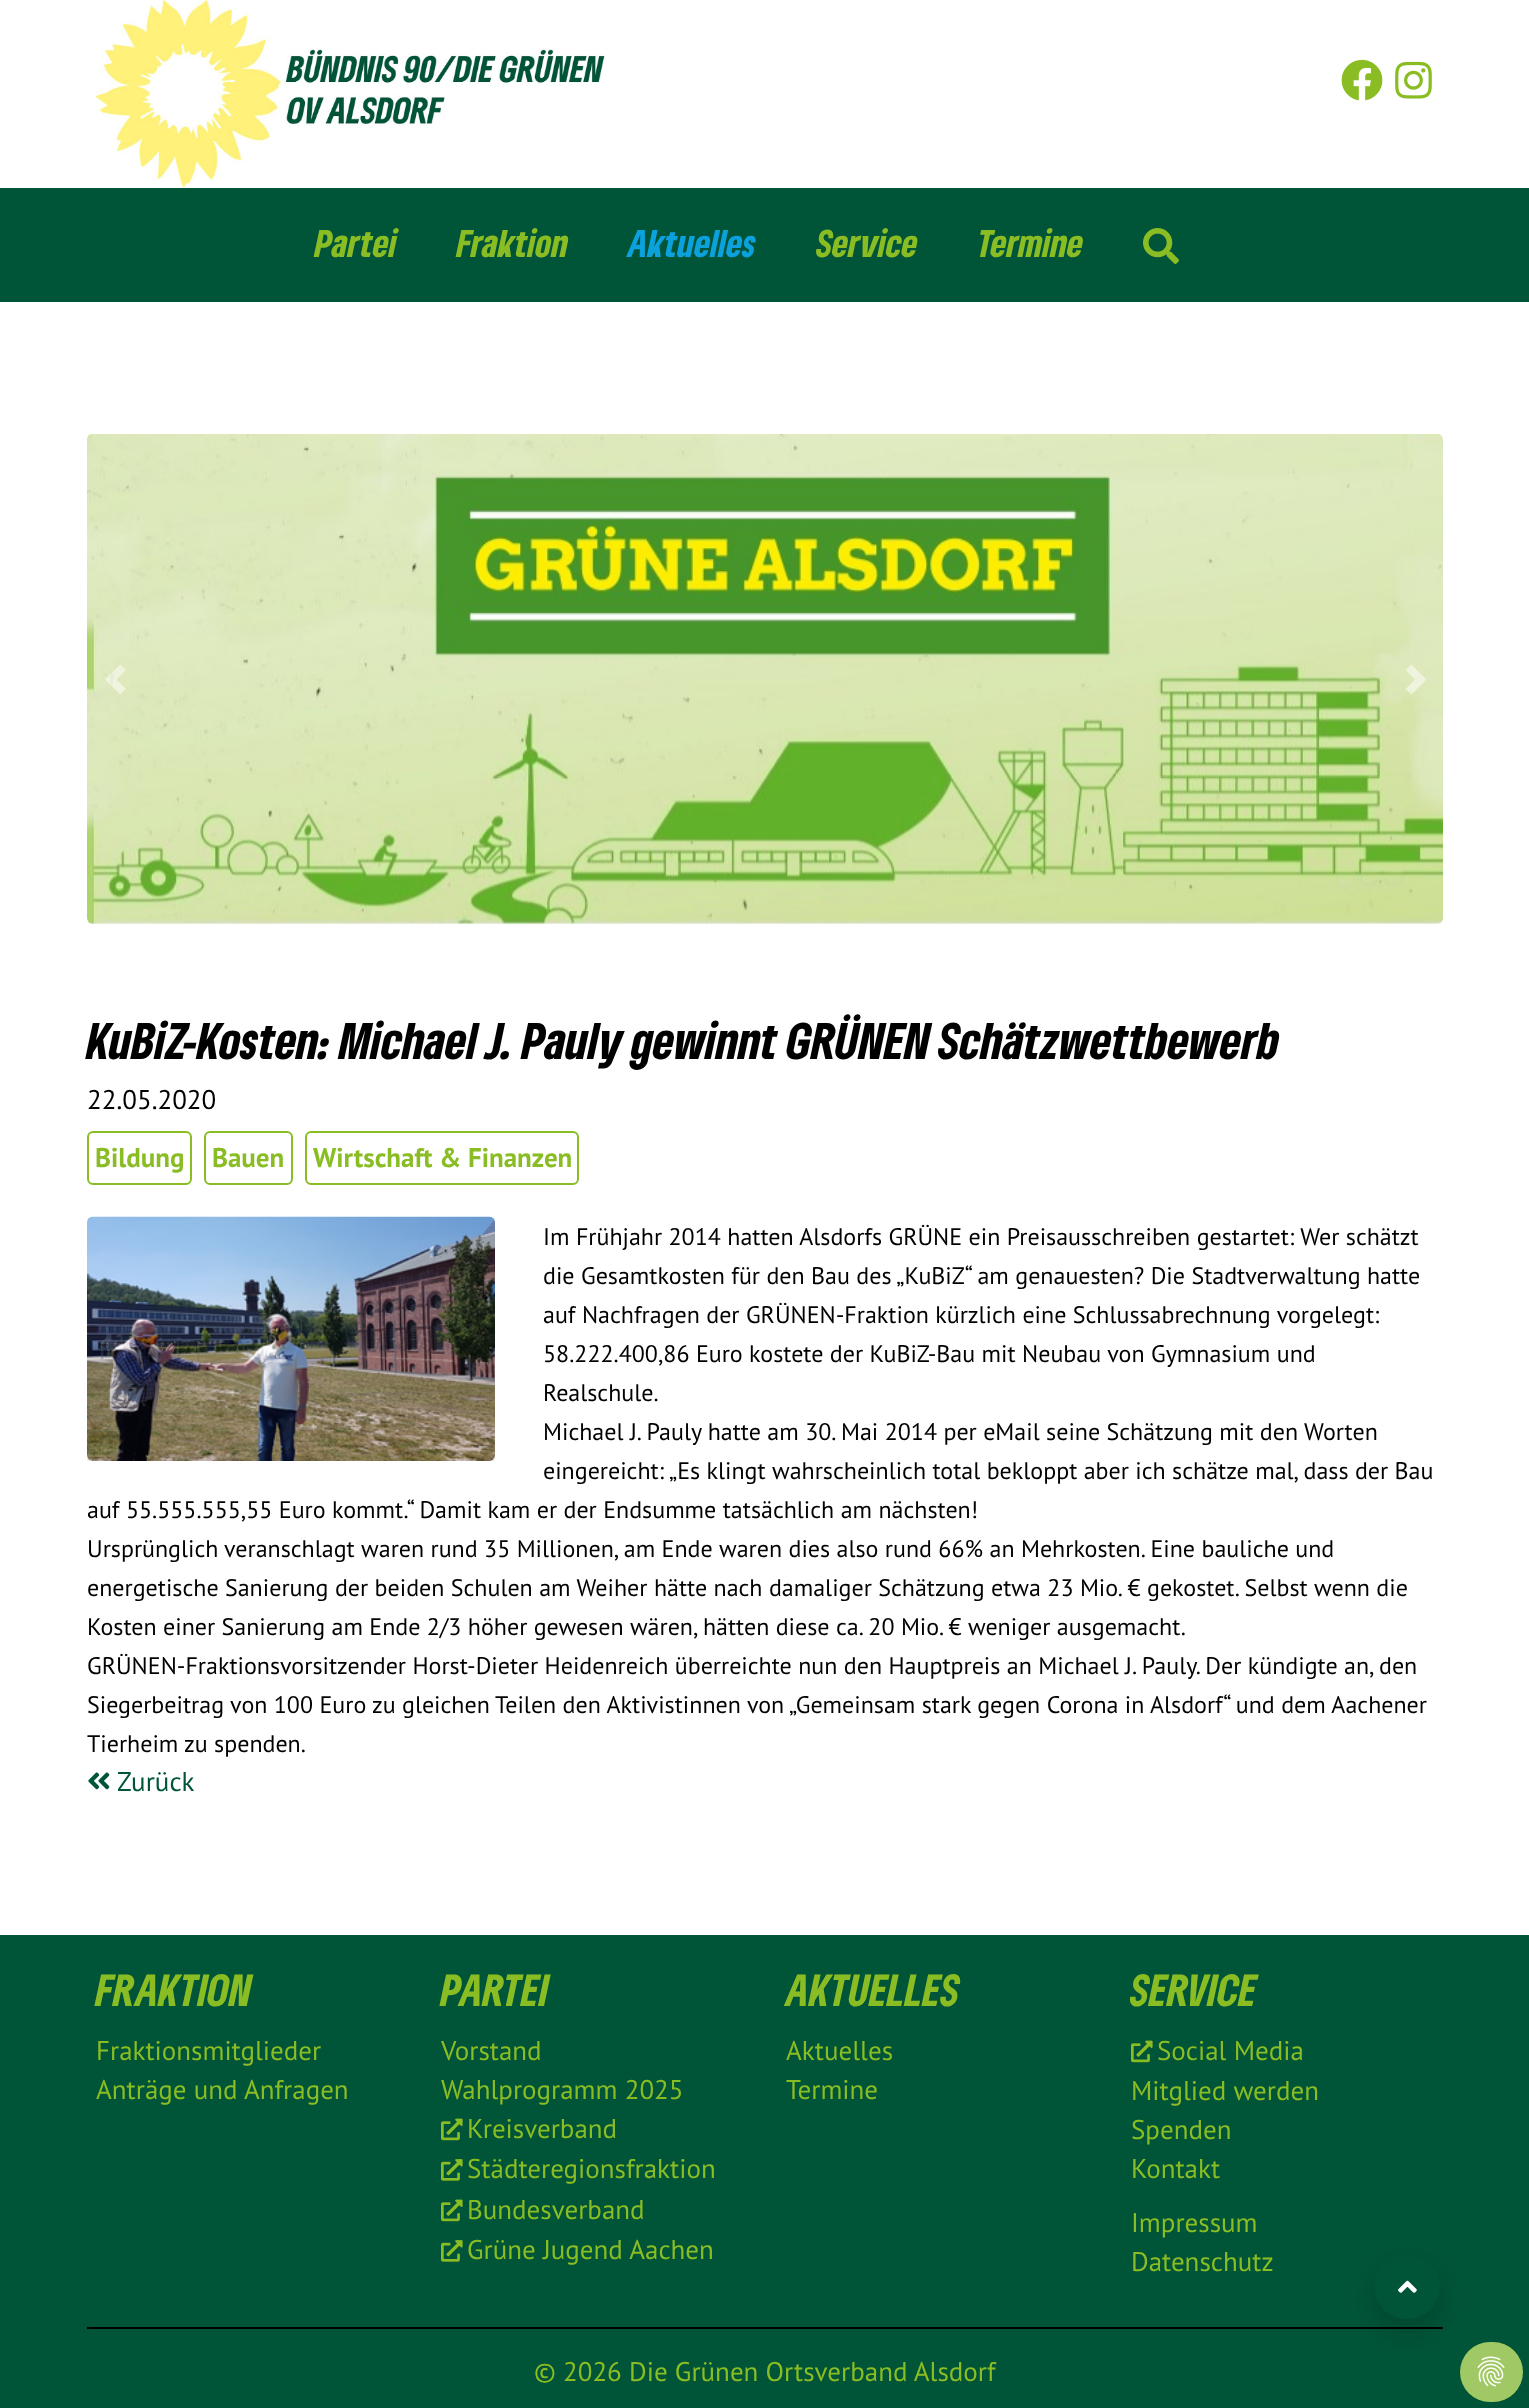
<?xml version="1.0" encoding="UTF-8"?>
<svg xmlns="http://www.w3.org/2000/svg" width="1529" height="2408">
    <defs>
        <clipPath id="clip1"><rect x="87" y="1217" width="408" height="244"/></clipPath>
        <filter id="blur1" x="-50%" y="-200%" width="200%" height="500%"><feGaussianBlur stdDeviation="12"/></filter>
    </defs>
    <rect width="100%" height="100%" fill="#FFFFFF"/>
    <image x="96" y="0" width="510" height="188" href="img_01.png"/>
    <image x="1341" y="59" width="42" height="42" href="img_02.png"/>
    <image x="1395" y="61" width="37" height="38" href="img_03.png"/>
    <rect x="0" y="188" width="1529" height="114" fill="#005437"/>
    <text x="315" y="257" font-family="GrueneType" font-size="36" font-weight="900" fill="#8ABD24">Partei</text>
    <text x="457" y="257" font-family="GrueneType" font-size="36" font-weight="900" fill="#8ABD24">Fraktion</text>
    <text x="628" y="257" font-family="GrueneType" font-size="36" font-weight="900" fill="#0BA1DD">Aktuelles</text>
    <text x="817" y="257" font-family="GrueneType" font-size="36" font-weight="900" fill="#8ABD24">Service</text>
    <text x="978" y="257" font-family="GrueneType" font-size="36" font-weight="900" fill="#8ABD24">Termine</text>
    <image x="1143" y="228" width="36" height="36" href="img_04.png"/>
    <image x="87" y="434" width="1356" height="490" href="img_05.png"/>
    <path d="M 120 664.5 L 105 679.5 L 120 694.5 L 126 689 L 116.5 679.5 L 126 670 Z" fill="#FFFFFF" fill-opacity="0.5"/>
    <path d="M 1411.5 664.5 L 1405.5 670 L 1415 679.5 L 1405.5 689 L 1411.5 694.5 L 1426.5 679.5 Z" fill="#FFFFFF" fill-opacity="0.5"/>
    <text x="87" y="1059" font-family="GrueneType" font-size="48" font-weight="900" fill="#000000">KuBiZ-Kosten: Michael J. Pauly gewinnt GRÜNEN Schätzwettbewerb</text>
    <text x="87" y="1109" font-family="PT Sans" font-size="27" fill="#000000">22.05.2020</text>
    <rect x="88" y="1132" width="103" height="52" rx="5" fill="none" stroke="#8ABD24" stroke-width="2"/>
    <text x="95" y="1167" font-family="PT Sans" font-size="27" font-weight="700" fill="#8ABD24">Bildung</text>
    <rect x="205" y="1132" width="87" height="52" rx="5" fill="none" stroke="#8ABD24" stroke-width="2"/>
    <text x="212" y="1167" font-family="PT Sans" font-size="27" font-weight="700" fill="#8ABD24">Bauen</text>
    <rect x="306" y="1132" width="272" height="52" rx="5" fill="none" stroke="#8ABD24" stroke-width="2"/>
    <text x="313" y="1167" font-family="PT Sans" font-size="27" font-weight="700" fill="#8ABD24">Wirtschaft &amp; Finanzen</text>
    <g clip-path="url(#clip1)">
        <rect x="87" y="1229" width="408" height="244" rx="6" fill="#000000" fill-opacity="0.15" filter="url(#blur1)"/>
    </g>
    <image x="87" y="1216" width="408" height="245" href="img_06.png"/>
    <text font-family="PT Sans" font-size="24" fill="#000000">
        <tspan x="543" y="1245">Im Frühjahr 2014 hatten Alsdorfs GRÜNE ein Preisausschreiben gestartet: Wer schätzt</tspan>
        <tspan x="543" y="1284">die Gesamtkosten für den Bau des „KuBiZ“ am genauesten? Die Stadtverwaltung hatte</tspan>
        <tspan x="543" y="1323">auf Nachfragen der GRÜNEN-Fraktion kürzlich eine Schlussabrechnung vorgelegt:</tspan>
        <tspan x="543" y="1362">58.222.400,86 Euro kostete der KuBiZ-Bau mit Neubau von Gymnasium und</tspan>
        <tspan x="543" y="1401">Realschule.</tspan>
        <tspan x="543" y="1440">Michael J. Pauly hatte am 30. Mai 2014 per eMail seine Schätzung mit den Worten</tspan>
        <tspan x="543" y="1479">eingereicht:</tspan>
    </text>
    <text x="669" y="1479" font-family="PT Sans" font-size="24" fill="#000000">„Es klingt wahrscheinlich total bekloppt aber ich schätze mal, dass der Bau</text>
    <text font-family="PT Sans" font-size="24" fill="#000000">
        <tspan x="87" y="1518">auf 55.555.555,55 Euro kommt.“ Damit kam er der Endsumme tatsächlich am nächsten!</tspan>
        <tspan x="87" y="1557">Ursprünglich</tspan>
    </text>
    <text x="224" y="1557" font-family="PT Sans" font-size="24" fill="#000000">veranschlagt waren rund 35 Millionen, am Ende waren dies also rund 66% an Mehrkosten. Eine bauliche und</text>
    <text font-family="PT Sans" font-size="24" fill="#000000">
        <tspan x="87" y="1596">energetische Sanierung der beiden Schulen am Weiher hätte nach damaliger Schätzung etwa 23 Mio. € gekostet. Selbst wenn die</tspan>
        <tspan x="87" y="1635">Kosten einer Sanierung am Ende 2/3 höher gewesen wären, hätten diese ca. 20 Mio. € weniger ausgemacht.</tspan>
        <tspan x="87" y="1674">GRÜNEN-Fraktionsvorsitzender Horst-Dieter Heidenreich überreichte nun den Hauptpreis an Michael J. Pauly. Der kündigte an, den</tspan>
        <tspan x="87" y="1713">Siegerbeitrag von 100 Euro zu gleichen</tspan>
    </text>
    <text x="495" y="1713" font-family="PT Sans" font-size="24" fill="#000000">Teilen den Aktivistinnen von „Gemeinsam stark gegen Corona in Alsdorf“ und dem Aachener</text>
    <text x="87" y="1752" font-family="PT Sans" font-size="24" fill="#000000">Tierheim zu spenden.</text>
    <image x="88" y="1772" width="22" height="18" href="img_07.png"/>
    <text x="117" y="1791" font-family="PT Sans" font-size="27" fill="#005437">Zurück</text>
    <rect x="0" y="1935" width="1529" height="473" fill="#005437"/>
    <text x="96" y="2006" font-family="GrueneType" font-size="42" font-weight="900" fill="#8ABD24">FRAKTION</text>
    <text font-family="PT Sans" font-size="27" fill="#8ABD24">
        <tspan x="96" y="2060">Fraktionsmitglieder</tspan>
        <tspan x="96" y="2099">Anträge und Anfragen</tspan>
    </text>
    <text x="441" y="2006" font-family="GrueneType" font-size="42" font-weight="900" fill="#8ABD24">PARTEI</text>
    <text font-family="PT Sans" font-size="27" fill="#8ABD24">
        <tspan x="441" y="2060">Vorstand</tspan>
        <tspan x="441" y="2099">Wahlprogramm 2025</tspan>
    </text>
    <image x="441" y="2118" width="22" height="23" href="img_08.png"/>
    <text x="467" y="2138" font-family="PT Sans" font-size="27" fill="#8ABD24">Kreisverband</text>
    <image x="441" y="2159" width="22" height="22" href="img_09.png"/>
    <text x="467" y="2178" font-family="PT Sans" font-size="27" fill="#8ABD24">Städteregionsfraktion</text>
    <image x="441" y="2199" width="22" height="23" href="img_08.png"/>
    <text x="467" y="2219" font-family="PT Sans" font-size="27" fill="#8ABD24">Bundesverband</text>
    <image x="441" y="2240" width="22" height="22" href="img_09.png"/>
    <text x="467" y="2259" font-family="PT Sans" font-size="27" fill="#8ABD24">Grüne Jugend Aachen</text>
    <text x="786" y="2006" font-family="GrueneType" font-size="42" font-weight="900" fill="#8ABD24">AKTUELLES</text>
    <text font-family="PT Sans" font-size="27" fill="#8ABD24">
        <tspan x="786" y="2060">Aktuelles</tspan>
        <tspan x="786" y="2099">Termine</tspan>
    </text>
    <text x="1131" y="2006" font-family="GrueneType" font-size="42" font-weight="900" fill="#8ABD24">SERVICE</text>
    <image x="1131" y="2040" width="22" height="23" href="img_08.png"/>
    <text x="1157" y="2060" font-family="PT Sans" font-size="27" fill="#8ABD24">Social Media</text>
    <text font-family="PT Sans" font-size="27" fill="#8ABD24">
        <tspan x="1131" y="2100">Mitglied werden</tspan>
        <tspan x="1131" y="2139">Spenden</tspan>
        <tspan x="1131" y="2178">Kontakt</tspan>
    </text>
    <text font-family="PT Sans" font-size="27" fill="#8ABD24">
        <tspan x="1131" y="2232">Impressum</tspan>
        <tspan x="1131" y="2271">Datenschutz</tspan>
    </text>
    <rect x="87" y="2327" width="1356" height="2" fill="#000000"/>
    <text x="534" y="2381" font-family="PT Sans" font-size="27" fill="#8ABD24">© 2026 Die Grünen Ortsverband Alsdorf</text>
    <rect x="1374" y="2267" width="66" height="64" rx="32" fill="#000000" fill-opacity="0.15" filter="url(#blur1)"/>
    <rect x="1374" y="2255" width="66" height="64" rx="32" fill="#005437"/>
    <image x="1398" y="2280" width="19" height="13" href="img_10.png"/>
    <rect x="1460" y="2342" width="63" height="60" rx="30" fill="#A0C864"/>
    <image x="1477" y="2356" width="28" height="31" href="img_11.png"/>
</svg>
